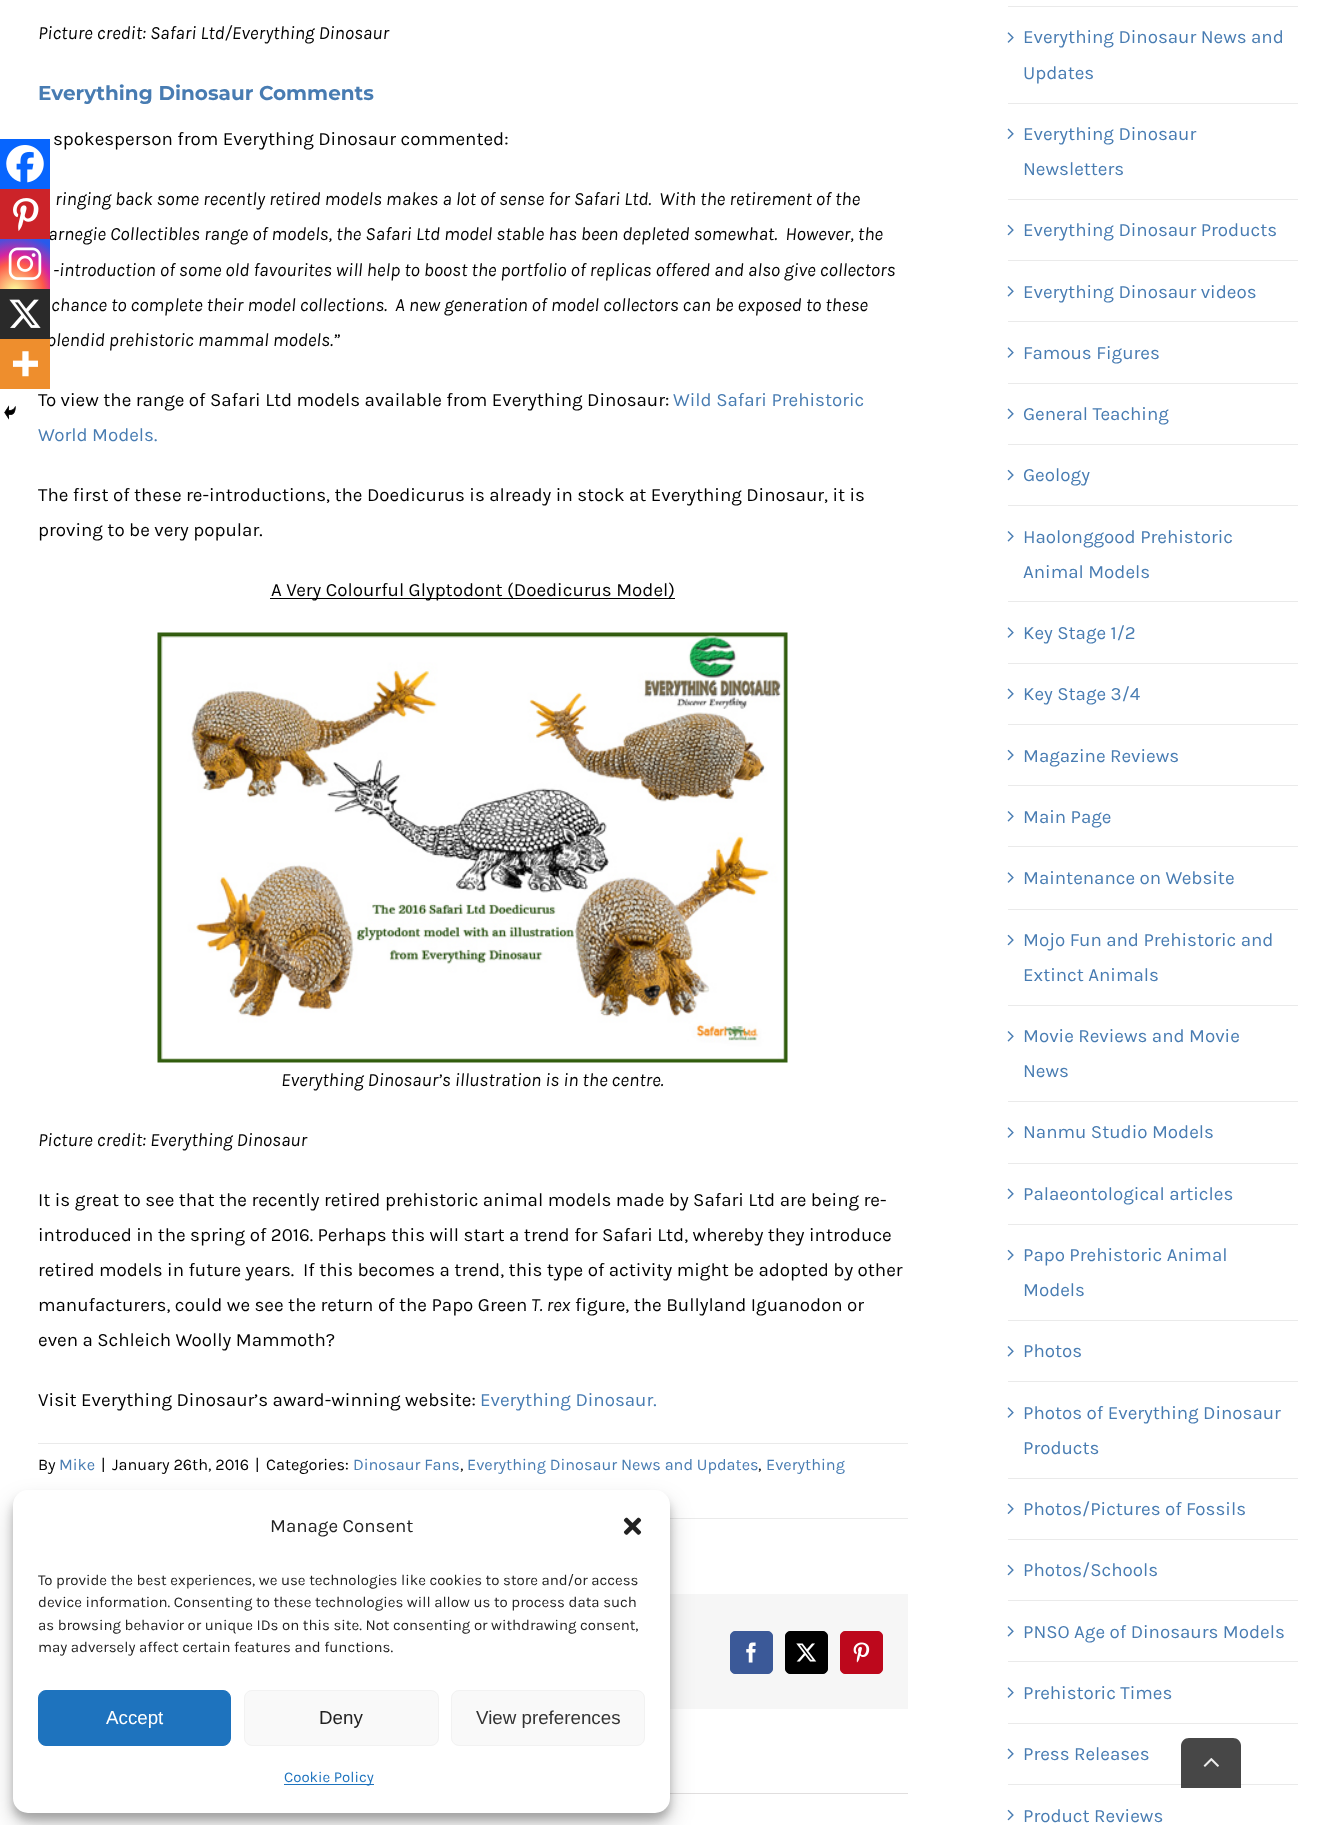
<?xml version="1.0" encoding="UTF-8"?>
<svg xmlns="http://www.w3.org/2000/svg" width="1334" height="1825">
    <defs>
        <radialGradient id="g1" gradientUnits="userSpaceOnUse" cx="15" cy="292" r="64"><stop offset="0" stop-color="#FDF497"/><stop offset="0.05" stop-color="#FDF497"/><stop offset="0.45" stop-color="#FD5949"/><stop offset="0.6" stop-color="#D6249F"/><stop offset="0.9" stop-color="#285AEB"/></radialGradient>
        <filter id="blur1" x="-50%" y="-200%" width="200%" height="500%"><feGaussianBlur stdDeviation="4"/></filter>
        <filter id="blur2" x="-50%" y="-200%" width="200%" height="500%"><feGaussianBlur stdDeviation="12.5"/></filter>
    </defs>
    <rect width="100%" height="100%" fill="#FFFFFF"/>
    <text x="38" y="39" font-family="Karla" font-size="18.75" font-style="italic" fill="#000000">Picture credit: Safari Ltd/Everything Dinosaur</text>
    <text x="38" y="100" font-family="Montserrat" font-size="20" font-weight="700" fill="#487CB2">Everything Dinosaur Comments</text>
    <rect x="0" y="139" width="50" height="50" fill="#0765FE"/>
    <image x="6" y="145" width="38" height="38" href="img_01.png"/>
    <text x="48" y="240" font-family="Karla" font-size="18.75" font-style="italic" fill="#000000" xml:space="preserve">arnegie Collectibles range of models, the Safari Ltd model stable has been depleted somewhat.  However, the</text>
    <rect x="0" y="189" width="50" height="50" fill="#CC2329"/>
    <image x="13" y="198" width="26" height="33" href="img_02.png"/>
    <rect x="0" y="239" width="50" height="50" fill="url(#g1)"/>
    <image x="8" y="247" width="34" height="33" href="img_03.png"/>
    <text x="46" y="346" font-family="Karla" font-size="18.75" font-style="italic" fill="#000000">plendid prehistoric mammal models.”</text>
    <rect x="0" y="289" width="50" height="50" fill="#2A2A2A"/>
    <image x="9" y="299" width="32" height="29" href="img_04.png"/>
    <rect x="0" y="339" width="50" height="50" fill="#EE8E2D"/>
    <image x="12" y="351" width="26" height="26" href="img_05.png"/>
    <image x="4" y="405" width="12" height="15" href="img_06.png"/>
    <text x="53" y="145" font-family="Karla" font-size="18.75" fill="#000000">spokesperson from Everything Dinosaur commented:</text>
    <text x="55" y="205" font-family="Karla" font-size="18.75" font-style="italic" fill="#000000" xml:space="preserve">ringing back some recently retired models makes a lot of sense for Safari Ltd.  With the retirement of the</text>
    <text x="53" y="276" font-family="Karla" font-size="18.75" font-style="italic" fill="#000000">-introduction of some old favourites will help to boost the portfolio of replicas offered and also give collectors</text>
    <text x="51" y="311" font-family="Karla" font-size="18.75" font-style="italic" fill="#000000" xml:space="preserve">chance to complete their model collections.  A new generation of model collectors can be exposed to these</text>
    <text x="38" y="406" font-family="Karla" font-size="18.75" fill="#000000">To view the range of Safari Ltd models available from Everything Dinosaur:</text>
    <text x="673" y="406" font-family="Karla" font-size="18.75" fill="#487CB2">Wild Safari Prehistoric</text>
    <text x="38" y="441" font-family="Karla" font-size="18.75" fill="#487CB2">World Models.</text>
    <text font-family="Karla" font-size="18.75" fill="#000000">
        <tspan x="38" y="501">The first of these re-introductions, the Doedicurus is already in stock at Everything Dinosaur, it is</tspan>
        <tspan x="38" y="536">proving to be very popular.</tspan>
    </text>
    <rect x="270" y="598" width="405" height="1" fill="#000000"/>
    <text x="271" y="596" font-family="Karla" font-size="18.75" fill="#000000">A Very Colourful Glyptodont (Doedicurus Model)</text>
    <image x="157" y="632" width="631" height="431" href="img_07.png"/>
    <text x="281" y="1086" font-family="Karla" font-size="18.75" font-style="italic" fill="#000000">Everything Dinosaur’s illustration is in the centre.</text>
    <text x="38" y="1146" font-family="Karla" font-size="18.75" font-style="italic" fill="#000000">Picture credit: Everything Dinosaur</text>
    <text font-family="Karla" font-size="18.75" fill="#000000" xml:space="preserve"><tspan x="38" y="1206">It is great to see that the recently retired prehistoric animal models made by Safari Ltd are being re-</tspan><tspan x="38" y="1241">introduced in the spring of 2016. Perhaps this will start a trend for Safari Ltd, whereby they introduce</tspan><tspan x="38" y="1276">retired models in future years.  If this becomes a trend, this type of activity might be adopted by other</tspan><tspan x="38" y="1311">manufacturers, could we see the return of the Papo Green</tspan></text>
    <text x="531" y="1311" font-family="Karla" font-size="18.75" font-style="italic" fill="#000000">T. rex</text>
    <text x="575" y="1311" font-family="Karla" font-size="18.75" fill="#000000">figure, the Bullyland Iguanodon or</text>
    <text x="38" y="1346" font-family="Karla" font-size="18.75" fill="#000000">even a Schleich Woolly Mammoth?</text>
    <text x="38" y="1406" font-family="Karla" font-size="18.75" fill="#000000">Visit Everything Dinosaur’s award-winning website:</text>
    <text x="480" y="1406" font-family="Karla" font-size="18.75" fill="#487CB2">Everything Dinosaur.</text>
    <rect x="38" y="1443" width="870" height="1" fill="#EAEAEA"/>
    <rect x="670" y="1518" width="238" height="1" fill="#EAEAEA"/>
    <text x="38" y="1470" font-family="Karla" font-size="16.25" fill="#000000">By</text>
    <text x="59" y="1470" font-family="Karla" font-size="16.25" fill="#487CB2">Mike</text>
    <text x="101" y="1470" font-family="Karla" font-size="16.25" fill="#000000">|</text>
    <text x="112" y="1470" font-family="Karla" font-size="16.25" fill="#000000">January 26th, 2016</text>
    <text x="255" y="1470" font-family="Karla" font-size="16.25" fill="#000000">|</text>
    <text x="266" y="1470" font-family="Karla" font-size="16.25" fill="#000000">Categories:</text>
    <text x="353" y="1470" font-family="Karla" font-size="16.25" fill="#487CB2">Dinosaur Fans</text>
    <text x="460" y="1470" font-family="Karla" font-size="16.25" fill="#000000">,</text>
    <text x="467" y="1470" font-family="Karla" font-size="16.25" fill="#487CB2">Everything Dinosaur News and Updates</text>
    <text x="758" y="1470" font-family="Karla" font-size="16.25" fill="#000000">,</text>
    <text x="766" y="1470" font-family="Karla" font-size="16.25" fill="#487CB2">Everything</text>
    <rect x="670" y="1594" width="238" height="115" fill="#F6F6F6"/>
    <rect x="730.5" y="1631.5" width="42" height="42" rx="4.5" fill="#3B5998" stroke="#3B5998"/>
    <image x="746" y="1642" width="10" height="21" href="img_08.png"/>
    <rect x="785.5" y="1631.5" width="42" height="42" rx="4.5" fill="#000000" stroke="#000000"/>
    <image x="796" y="1643" width="21" height="19" href="img_09.png"/>
    <rect x="840.5" y="1631.5" width="42" height="42" rx="4.5" fill="#BD081C" stroke="#BD081C"/>
    <image x="853" y="1642" width="17" height="21" href="img_10.png"/>
    <rect x="670" y="1793" width="238" height="1" fill="#E0DEDE"/>
    <rect x="1008" y="6" width="290" height="1" fill="#EAEAEA"/>
    <rect x="1008" y="103" width="290" height="1" fill="#EAEAEA"/>
    <image x="1007" y="32" width="7" height="11" href="img_11.png"/>
    <text font-family="Karla" font-size="18.75" fill="#487CB2">
        <tspan x="1023" y="43">Everything Dinosaur News and</tspan>
        <tspan x="1023" y="79">Updates</tspan>
    </text>
    <rect x="1008" y="199" width="290" height="1" fill="#EAEAEA"/>
    <image x="1007" y="128" width="7" height="11" href="img_12.png"/>
    <text font-family="Karla" font-size="18.75" fill="#487CB2">
        <tspan x="1023" y="140">Everything Dinosaur</tspan>
        <tspan x="1023" y="175">Newsletters</tspan>
    </text>
    <rect x="1008" y="260" width="290" height="1" fill="#EAEAEA"/>
    <image x="1007" y="224" width="7" height="12" href="img_13.png"/>
    <text x="1023" y="236" font-family="Karla" font-size="18.75" fill="#487CB2">Everything Dinosaur Products</text>
    <rect x="1008" y="321" width="290" height="1" fill="#EAEAEA"/>
    <image x="1007" y="286" width="7" height="11" href="img_14.png"/>
    <text x="1023" y="298" font-family="Karla" font-size="18.75" fill="#487CB2">Everything Dinosaur videos</text>
    <rect x="1008" y="383" width="290" height="1" fill="#EAEAEA"/>
    <image x="1007" y="347" width="7" height="11" href="img_11.png"/>
    <text x="1023" y="359" font-family="Karla" font-size="18.75" fill="#487CB2">Famous Figures</text>
    <rect x="1008" y="444" width="290" height="1" fill="#EAEAEA"/>
    <image x="1007" y="408" width="7" height="11" href="img_12.png"/>
    <text x="1023" y="420" font-family="Karla" font-size="18.75" fill="#487CB2">General Teaching</text>
    <rect x="1008" y="505" width="290" height="1" fill="#EAEAEA"/>
    <image x="1007" y="469" width="7" height="12" href="img_13.png"/>
    <text x="1023" y="481" font-family="Karla" font-size="18.75" fill="#487CB2">Geology</text>
    <rect x="1008" y="601" width="290" height="1" fill="#EAEAEA"/>
    <image x="1007" y="531" width="7" height="11" href="img_14.png"/>
    <text font-family="Karla" font-size="18.75" fill="#487CB2">
        <tspan x="1023" y="543">Haolonggood Prehistoric</tspan>
        <tspan x="1023" y="578">Animal Models</tspan>
    </text>
    <rect x="1008" y="663" width="290" height="1" fill="#EAEAEA"/>
    <image x="1007" y="627" width="7" height="11" href="img_11.png"/>
    <text x="1023" y="639" font-family="Karla" font-size="18.75" fill="#487CB2">Key Stage 1/2</text>
    <rect x="1008" y="724" width="290" height="1" fill="#EAEAEA"/>
    <image x="1007" y="688" width="7" height="11" href="img_12.png"/>
    <text x="1023" y="700" font-family="Karla" font-size="18.75" fill="#487CB2">Key Stage 3/4</text>
    <rect x="1008" y="785" width="290" height="1" fill="#EAEAEA"/>
    <image x="1007" y="749" width="7" height="12" href="img_13.png"/>
    <text x="1023" y="762" font-family="Karla" font-size="18.75" fill="#487CB2">Magazine Reviews</text>
    <rect x="1008" y="846" width="290" height="1" fill="#EAEAEA"/>
    <image x="1007" y="811" width="7" height="11" href="img_14.png"/>
    <text x="1023" y="823" font-family="Karla" font-size="18.75" fill="#487CB2">Main Page</text>
    <rect x="1008" y="909" width="290" height="1" fill="#EAEAEA"/>
    <image x="1007" y="872" width="7" height="11" href="img_11.png"/>
    <text x="1023" y="884" font-family="Karla" font-size="18.75" fill="#487CB2">Maintenance on Website</text>
    <rect x="1008" y="1005" width="290" height="1" fill="#EAEAEA"/>
    <image x="1007" y="934" width="7" height="12" href="img_13.png"/>
    <text font-family="Karla" font-size="18.75" fill="#487CB2">
        <tspan x="1023" y="946">Mojo Fun and Prehistoric and</tspan>
        <tspan x="1023" y="981">Extinct Animals</tspan>
    </text>
    <rect x="1008" y="1101" width="290" height="1" fill="#EAEAEA"/>
    <image x="1007" y="1031" width="7" height="11" href="img_14.png"/>
    <text font-family="Karla" font-size="18.75" fill="#487CB2">
        <tspan x="1023" y="1042">Movie Reviews and Movie</tspan>
        <tspan x="1023" y="1077">News</tspan>
    </text>
    <rect x="1008" y="1163" width="290" height="1" fill="#EAEAEA"/>
    <image x="1007" y="1127" width="7" height="11" href="img_11.png"/>
    <text x="1023" y="1138" font-family="Karla" font-size="18.75" fill="#487CB2">Nanmu Studio Models</text>
    <rect x="1008" y="1224" width="290" height="1" fill="#EAEAEA"/>
    <image x="1007" y="1188" width="7" height="11" href="img_12.png"/>
    <text x="1023" y="1200" font-family="Karla" font-size="18.75" fill="#487CB2">Palaeontological articles</text>
    <rect x="1008" y="1320" width="290" height="1" fill="#EAEAEA"/>
    <image x="1007" y="1249" width="7" height="12" href="img_13.png"/>
    <text font-family="Karla" font-size="18.75" fill="#487CB2">
        <tspan x="1023" y="1261">Papo Prehistoric Animal</tspan>
        <tspan x="1023" y="1296">Models</tspan>
    </text>
    <rect x="1008" y="1381" width="290" height="1" fill="#EAEAEA"/>
    <image x="1007" y="1346" width="7" height="11" href="img_14.png"/>
    <text x="1023" y="1357" font-family="Karla" font-size="18.75" fill="#487CB2">Photos</text>
    <rect x="1008" y="1478" width="290" height="1" fill="#EAEAEA"/>
    <image x="1007" y="1407" width="7" height="11" href="img_11.png"/>
    <text font-family="Karla" font-size="18.75" fill="#487CB2">
        <tspan x="1023" y="1419">Photos of Everything Dinosaur</tspan>
        <tspan x="1023" y="1454">Products</tspan>
    </text>
    <rect x="1008" y="1539" width="290" height="1" fill="#EAEAEA"/>
    <image x="1007" y="1503" width="7" height="11" href="img_12.png"/>
    <text x="1023" y="1515" font-family="Karla" font-size="18.75" fill="#487CB2">Photos/Pictures of Fossils</text>
    <rect x="1008" y="1600" width="290" height="1" fill="#EAEAEA"/>
    <image x="1007" y="1564" width="7" height="12" href="img_13.png"/>
    <text x="1023" y="1576" font-family="Karla" font-size="18.75" fill="#487CB2">Photos/Schools</text>
    <rect x="1008" y="1661" width="290" height="1" fill="#EAEAEA"/>
    <image x="1007" y="1626" width="7" height="11" href="img_14.png"/>
    <text x="1023" y="1638" font-family="Karla" font-size="18.75" fill="#487CB2">PNSO Age of Dinosaurs Models</text>
    <rect x="1008" y="1723" width="290" height="1" fill="#EAEAEA"/>
    <image x="1007" y="1687" width="7" height="11" href="img_11.png"/>
    <text x="1023" y="1699" font-family="Karla" font-size="18.75" fill="#487CB2">Prehistoric Times</text>
    <rect x="1008" y="1784" width="290" height="1" fill="#EAEAEA"/>
    <image x="1007" y="1748" width="7" height="11" href="img_12.png"/>
    <text x="1023" y="1760" font-family="Karla" font-size="18.75" fill="#487CB2">Press Releases</text>
    <image x="1007" y="1809" width="7" height="12" href="img_13.png"/>
    <text x="1023" y="1822" font-family="Karla" font-size="18.75" fill="#487CB2">Product Reviews</text>
    <rect x="13" y="1498" width="657" height="322" rx="15" fill="#000000" fill-opacity="0.23" filter="url(#blur1)"/>
    <rect x="13" y="1503" width="657" height="322" rx="15" fill="#000000" fill-opacity="0.19" filter="url(#blur2)"/>
    <rect x="13" y="1490" width="657" height="323" rx="15" fill="#FFFFFF"/>
    <text x="270" y="1532" font-family="Karla" font-size="18.75" fill="#222222">Manage Consent</text>
    <image x="623" y="1517" width="19" height="18" href="img_15.png"/>
    <text font-family="Karla" font-size="15" fill="#222222">
        <tspan x="38" y="1585">To provide the best experiences, we use technologies like cookies to store and/or access</tspan>
        <tspan x="38" y="1607">device information. Consenting to these technologies will allow us to process data such</tspan>
        <tspan x="38" y="1630">as browsing behavior or unique IDs on this site. Not consenting or withdrawing consent,</tspan>
        <tspan x="38" y="1652">may adversely affect certain features and functions.</tspan>
    </text>
    <rect x="38.5" y="1690.5" width="192" height="55" rx="7.5" fill="#1E73BE" stroke="#1E73BE"/>
    <text x="106" y="1724" font-family="Liberation Sans" font-size="18.75" fill="#FFFFFF">Accept</text>
    <rect x="244.5" y="1690.5" width="194" height="55" rx="7.5" fill="#F9F9F9" stroke="#F2F2F2"/>
    <text x="319" y="1724" font-family="Liberation Sans" font-size="18.75" fill="#222222">Deny</text>
    <rect x="451.5" y="1690.5" width="193" height="55" rx="7.5" fill="#F9F9F9" stroke="#F2F2F2"/>
    <text x="476" y="1724" font-family="Liberation Sans" font-size="18.75" fill="#333333">View preferences</text>
    <rect x="284" y="1784" width="90" height="1" fill="#1E73BE"/>
    <text x="284" y="1782" font-family="Karla" font-size="15" fill="#1E73BE">Cookie Policy</text>
    <path d="M 1189 1738 H 1233 C 1237.5 1738 1241 1741.5 1241 1746 V 1788 H 1181 V 1746 C 1181 1741.5 1184.5 1738 1189 1738 Z" fill="#333333" fill-opacity="0.9"/>
    <image x="1203" y="1758" width="16" height="9" href="img_16.png"/>
</svg>
